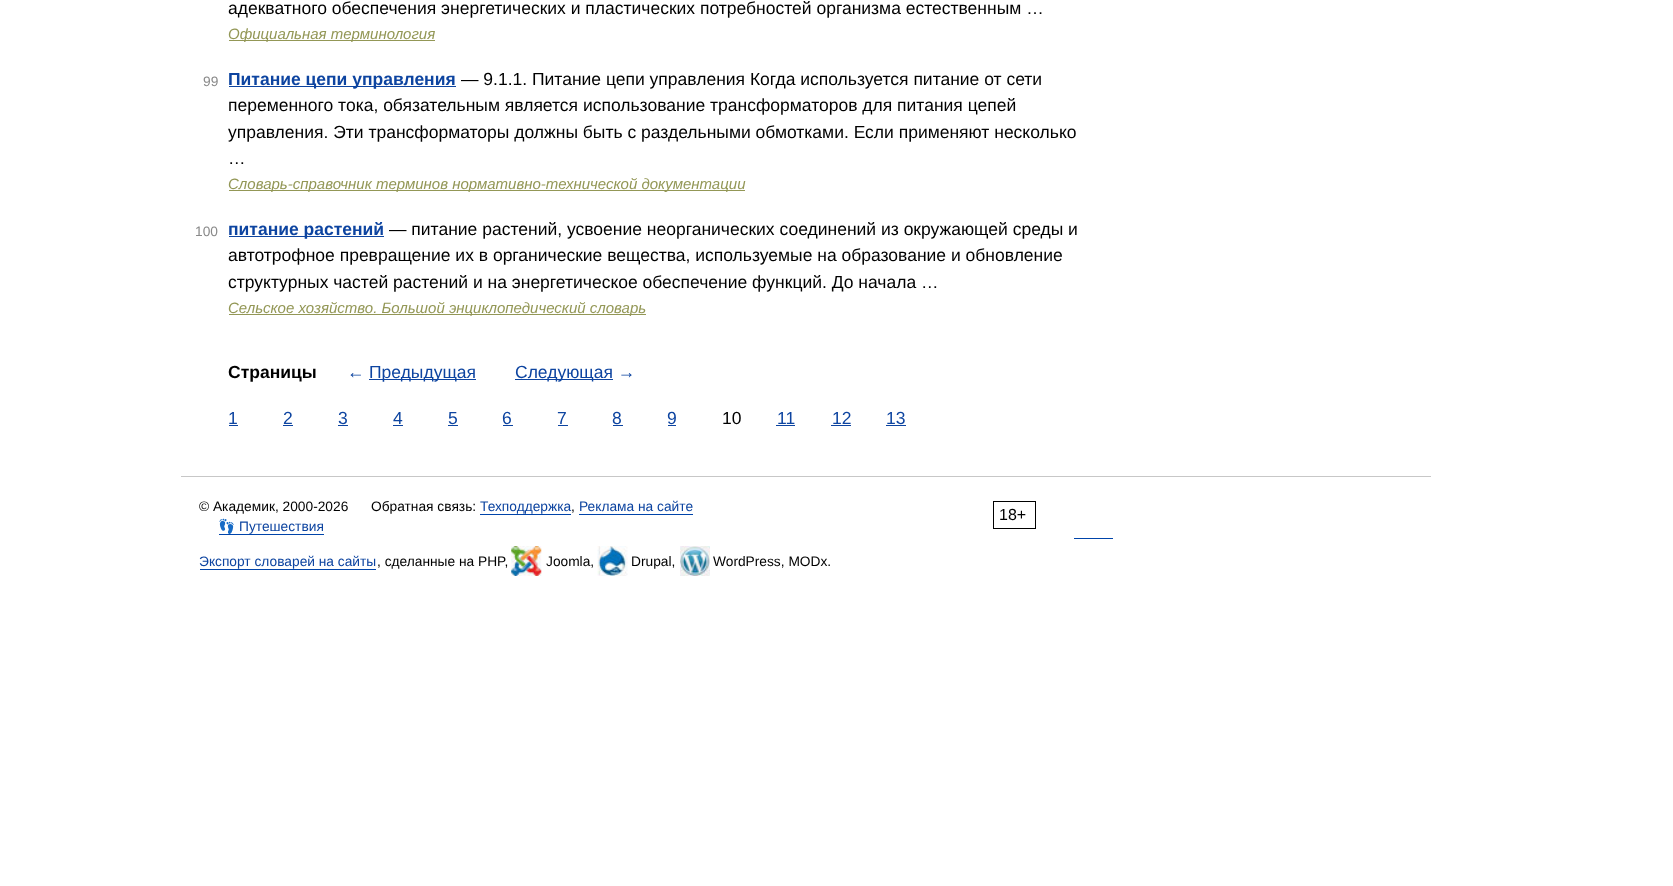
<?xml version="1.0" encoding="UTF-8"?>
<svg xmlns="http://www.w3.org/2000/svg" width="1673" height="886">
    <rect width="100%" height="100%" fill="#FFFFFF"/>
    <text x="228" y="14" font-family="Liberation Sans" font-size="17.5" fill="#000000">адекватного обеспечения энергетических и пластических потребностей организма естественным …</text>
    <rect x="229" y="40" width="206" height="1" fill="#939756"/>
    <text x="228" y="39" font-family="Liberation Sans" font-size="15" font-style="italic" fill="#939756">Официальная терминология</text>
    <text x="203" y="86" font-family="Liberation Sans" font-size="13.75" fill="#898989">99</text>
    <rect x="229" y="86" width="227" height="1" fill="#0D44A0"/>
    <text x="228" y="85" font-family="Liberation Sans" font-size="17.5" font-weight="700" fill="#0D44A0">Питание цепи управления</text>
    <text x="461" y="85" font-family="Liberation Sans" font-size="17.5" fill="#000000">— 9.1.1. Питание цепи управления Когда используется питание от сети</text>
    <text font-family="Liberation Sans" font-size="17.5" fill="#000000">
        <tspan x="228" y="111">переменного тока, обязательным является использование трансформаторов для питания цепей</tspan>
        <tspan x="228" y="138">управления. Эти трансформаторы должны быть с раздельными обмотками. Если применяют несколько</tspan>
        <tspan x="228" y="164">…</tspan>
    </text>
    <rect x="229" y="190" width="516" height="1" fill="#939756"/>
    <text x="228" y="189" font-family="Liberation Sans" font-size="15" font-style="italic" fill="#939756">Словарь-справочник терминов нормативно-технической документации</text>
    <text x="195" y="236" font-family="Liberation Sans" font-size="13.75" fill="#898989">100</text>
    <rect x="229" y="236" width="155" height="1" fill="#0D44A0"/>
    <text x="228" y="235" font-family="Liberation Sans" font-size="17.5" font-weight="700" fill="#0D44A0">питание растений</text>
    <text x="389" y="235" font-family="Liberation Sans" font-size="17.5" fill="#000000">— питание растений, усвоение неорганических соединений из окружающей среды и</text>
    <text font-family="Liberation Sans" font-size="17.5" fill="#000000">
        <tspan x="228" y="261">автотрофное превращение их в органические вещества, используемые на образование и обновление</tspan>
        <tspan x="228" y="288">структурных частей растений и на энергетическое обеспечение функций. До начала …</tspan>
    </text>
    <rect x="229" y="314" width="417" height="1" fill="#939756"/>
    <text x="228" y="313" font-family="Liberation Sans" font-size="15" font-style="italic" fill="#939756">Сельское хозяйство. Большой энциклопедический словарь</text>
    <text x="228" y="378" font-family="Liberation Sans" font-size="17.5" font-weight="700" fill="#000000">Страницы</text>
    <text x="347" y="378" font-family="Liberation Sans" font-size="17.5" fill="#0D44A0">←</text>
    <rect x="369" y="379" width="107" height="1" fill="#0D44A0"/>
    <text x="369" y="378" font-family="Liberation Sans" font-size="17.5" fill="#0D44A0">Предыдущая</text>
    <rect x="515" y="379" width="98" height="1" fill="#0D44A0"/>
    <text x="515" y="378" font-family="Liberation Sans" font-size="17.5" fill="#0D44A0">Следующая →</text>
    <text x="228" y="424" font-family="Liberation Sans" font-size="17.5" fill="#0D44A0">1</text>
    <rect x="229" y="425" width="9" height="1" fill="#0D44A0"/>
    <text x="283" y="424" font-family="Liberation Sans" font-size="17.5" fill="#0D44A0">2</text>
    <rect x="283" y="425" width="10" height="1" fill="#0D44A0"/>
    <text x="338" y="424" font-family="Liberation Sans" font-size="17.5" fill="#0D44A0">3</text>
    <rect x="338" y="425" width="10" height="1" fill="#0D44A0"/>
    <text x="393" y="424" font-family="Liberation Sans" font-size="17.5" fill="#0D44A0">4</text>
    <rect x="393" y="425" width="10" height="1" fill="#0D44A0"/>
    <text x="448" y="424" font-family="Liberation Sans" font-size="17.5" fill="#0D44A0">5</text>
    <rect x="448" y="425" width="10" height="1" fill="#0D44A0"/>
    <text x="502" y="424" font-family="Liberation Sans" font-size="17.5" fill="#0D44A0">6</text>
    <rect x="503" y="425" width="10" height="1" fill="#0D44A0"/>
    <text x="557" y="424" font-family="Liberation Sans" font-size="17.5" fill="#0D44A0">7</text>
    <rect x="558" y="425" width="10" height="1" fill="#0D44A0"/>
    <text x="612" y="424" font-family="Liberation Sans" font-size="17.5" fill="#0D44A0">8</text>
    <rect x="613" y="425" width="10" height="1" fill="#0D44A0"/>
    <text x="667" y="424" font-family="Liberation Sans" font-size="17.5" fill="#0D44A0">9</text>
    <rect x="668" y="425" width="8" height="1" fill="#0D44A0"/>
    <text x="722" y="424" font-family="Liberation Sans" font-size="17.5" fill="#000000">10</text>
    <text x="777" y="424" font-family="Liberation Sans" font-size="17.5" fill="#0D44A0">11</text>
    <rect x="776" y="425" width="19" height="1" fill="#0D44A0"/>
    <text x="832" y="424" font-family="Liberation Sans" font-size="17.5" fill="#0D44A0">12</text>
    <rect x="831" y="425" width="20" height="1" fill="#0D44A0"/>
    <text x="886" y="424" font-family="Liberation Sans" font-size="17.5" fill="#0D44A0">13</text>
    <rect x="886" y="425" width="20" height="1" fill="#0D44A0"/>
    <rect x="181" y="476" width="1250" height="1" fill="#C7C7C7"/>
    <text x="199" y="511" font-family="Liberation Sans" font-size="13.75" fill="#000000">© Академик, 2000-2026</text>
    <text x="371" y="511" font-family="Liberation Sans" font-size="13.75" fill="#000000">Обратная связь:</text>
    <text x="480" y="511" font-family="Liberation Sans" font-size="13.75" fill="#0D44A0">Техподдержка</text>
    <text x="571" y="511" font-family="Liberation Sans" font-size="13.75" fill="#000000">,</text>
    <rect x="480" y="514" width="91" height="1" fill="#0044AA"/>
    <rect x="579" y="514" width="114" height="1" fill="#0044AA"/>
    <text x="579" y="511" font-family="Liberation Sans" font-size="13.75" fill="#0D44A0">Реклама на сайте</text>
    <rect x="993.5" y="501.5" width="42" height="27" fill="none" stroke="#000000"/>
    <text x="999" y="520" font-family="Liberation Sans" font-size="16" fill="#000000">18+</text>
    <text x="218" y="531" font-family="Noto Color Emoji" font-size="13.75" fill="#0D44A0">👣</text>
    <text x="239" y="531" font-family="Liberation Sans" font-size="13.75" fill="#0D44A0">Путешествия</text>
    <rect x="219" y="534" width="105" height="1" fill="#0044AA"/>
    <rect x="1074" y="538" width="39" height="1" fill="#0044AA"/>
    <text x="199" y="566" font-family="Liberation Sans" font-size="13.75" fill="#0D44A0">Экспорт словарей на сайты</text>
    <rect x="200" y="569" width="176" height="1" fill="#0044AA"/>
    <text x="377" y="566" font-family="Liberation Sans" font-size="13.75" fill="#000000">, сделанные на PHP,</text>
    <image x="511" y="546" width="31" height="30" href="img_01.png"/>
    <text x="546" y="566" font-family="Liberation Sans" font-size="13.75" fill="#000000">Joomla,</text>
    <image x="597" y="546" width="31" height="30" href="img_02.png"/>
    <text x="631" y="566" font-family="Liberation Sans" font-size="13.75" fill="#000000">Drupal,</text>
    <image x="680" y="546" width="30" height="30" href="img_03.png"/>
    <text x="713" y="566" font-family="Liberation Sans" font-size="13.75" fill="#000000">WordPress, MODx.</text>
</svg>
